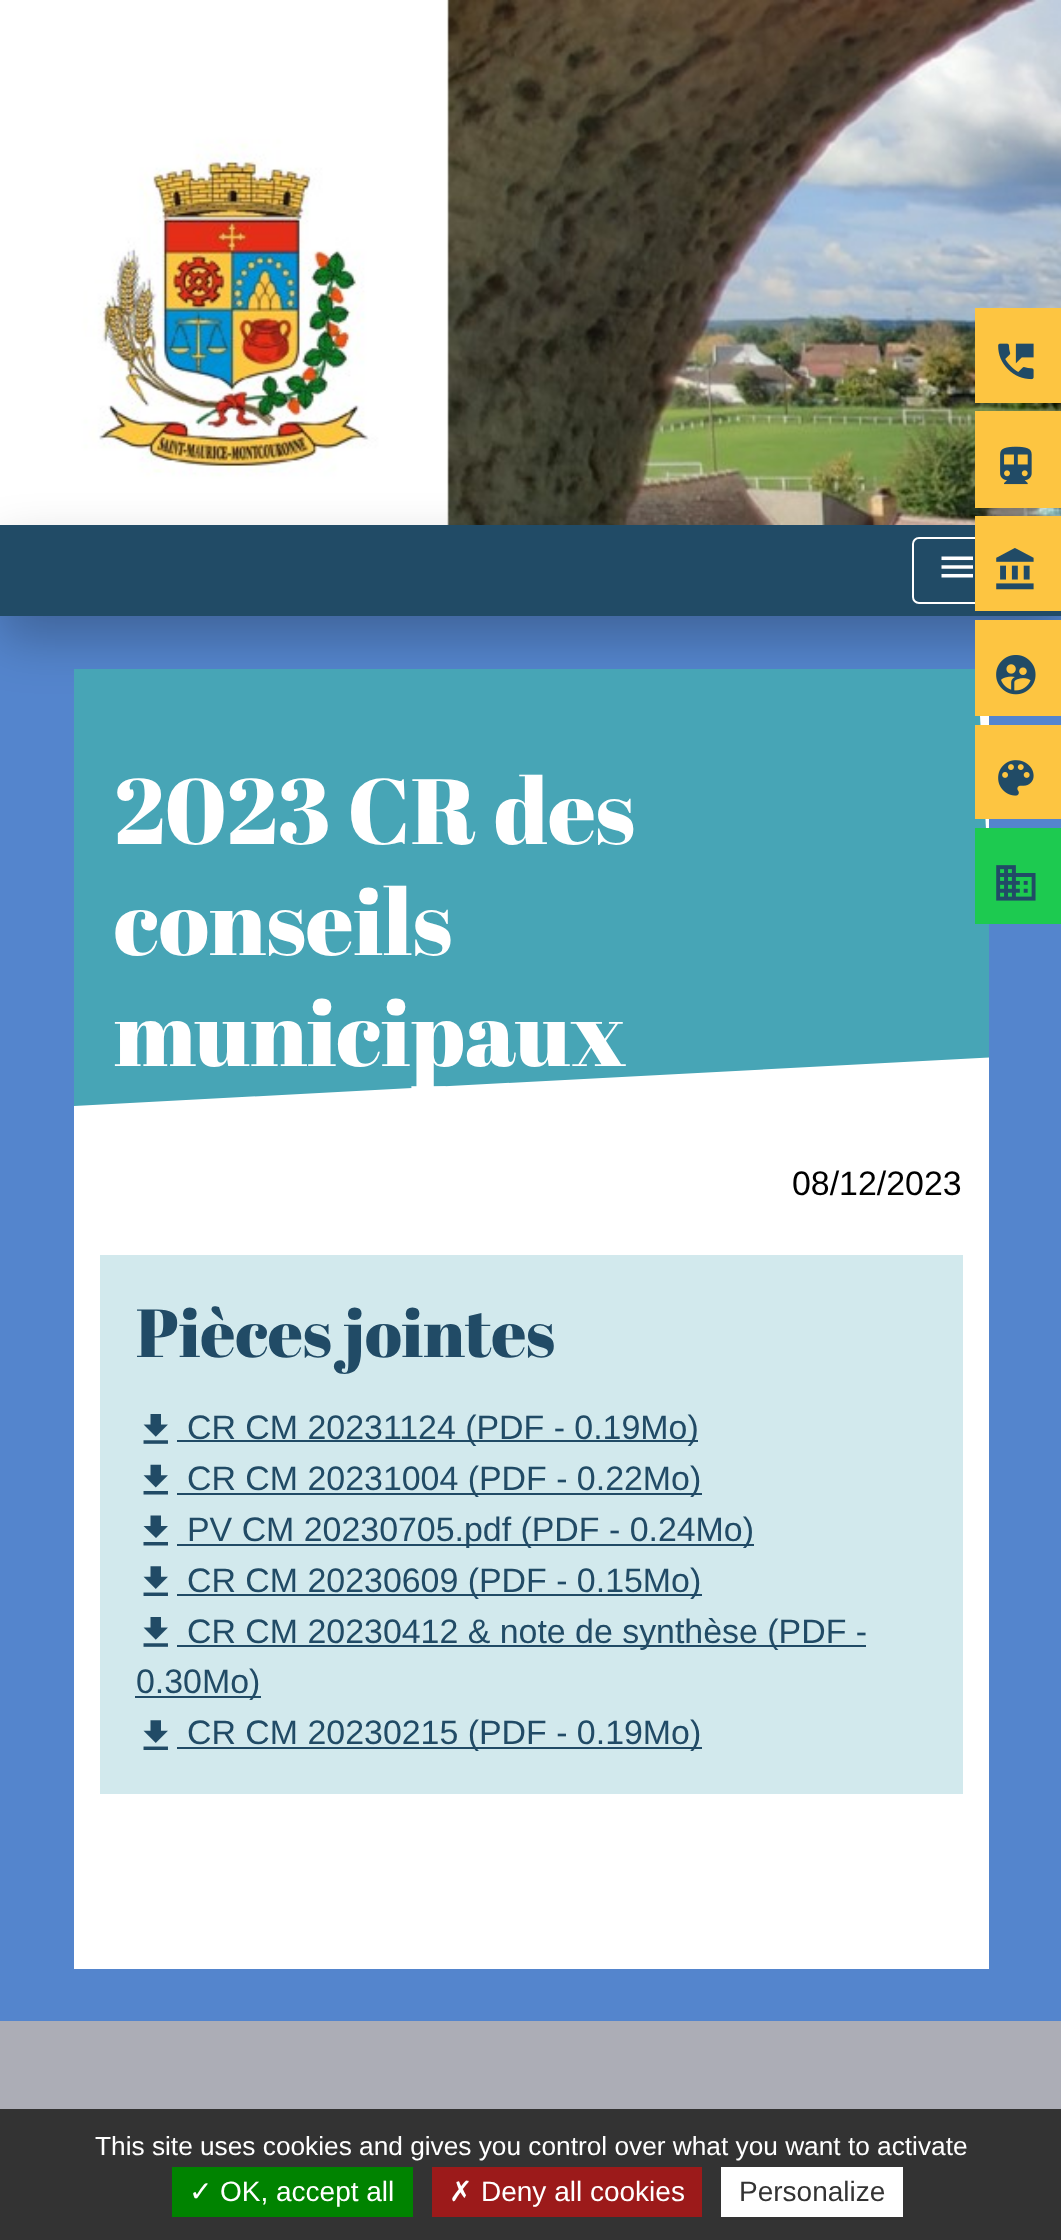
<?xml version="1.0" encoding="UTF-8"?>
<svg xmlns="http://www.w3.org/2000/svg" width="1061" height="2240">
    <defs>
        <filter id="blur1" x="-50%" y="-200%" width="200%" height="500%"><feGaussianBlur stdDeviation="25.5"/></filter>
        <clipPath id="clip1"><rect x="74" y="669" width="915" height="1300"/></clipPath>
    </defs>
    <rect width="100%" height="100%" fill="#5485CD"/>
    <image x="0" y="0" width="1061" height="525" href="img_01.png"/>
    <rect x="0" y="548" width="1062" height="91" fill="#000000" fill-opacity="0.25" filter="url(#blur1)"/>
    <rect x="0" y="525" width="1061" height="91" fill="#214B66"/>
    <rect x="913" y="538" width="91" height="65" rx="6" fill="none" stroke="#FFFFFF" stroke-width="2"/>
    <image x="941" y="556" width="32" height="22" href="img_02.png"/>
    <rect x="975" y="308" width="86" height="95" fill="#FDC541"/>
    <image x="998" y="343" width="36" height="37" href="img_03.png"/>
    <rect x="975" y="411" width="86" height="97" fill="#FDC541"/>
    <image x="1000" y="446" width="32" height="39" href="img_04.png"/>
    <rect x="975" y="516" width="86" height="95" fill="#FDC541"/>
    <image x="996" y="548" width="38" height="42" href="img_05.png"/>
    <rect x="74" y="716" width="915" height="1253" fill="#FFFFFF"/>
    <g clip-path="url(#clip1)">
        <path d="M 31 670 L 975 621 L 998 1057 L 54 1107 Z" fill="#47A5B6"/>
    </g>
    <rect x="975" y="620" width="86" height="96" fill="#FDC541"/>
    <image x="996" y="655" width="40" height="40" href="img_06.png"/>
    <rect x="975" y="725" width="86" height="94" fill="#FDC541"/>
    <image x="998" y="760" width="36" height="36" href="img_07.png"/>
    <rect x="975" y="828" width="86" height="96" fill="#1DCA50"/>
    <image x="996" y="865" width="40" height="36" href="img_08.png"/>
    <text font-family="Abril Fatface" font-size="92.5" fill="#FFFFFF">
        <tspan x="114" y="844">2023 CR des</tspan>
        <tspan x="114" y="955">conseils</tspan>
        <tspan x="114" y="1066">municipaux</tspan>
    </text>
    <text x="792" y="1195" font-family="Liberation Sans" font-size="33.9" fill="#000000">08/12/2023</text>
    <rect x="100" y="1255" width="863" height="539" fill="#D2E9ED"/>
    <text x="136" y="1357" font-family="Abril Fatface" font-size="67.75" fill="#214B66">Pièces jointes</text>
    <image x="143" y="1414" width="25" height="30" href="img_09.png"/>
    <rect x="177" y="1440" width="521" height="2" fill="#214B66"/>
    <text x="187" y="1439" font-family="Liberation Sans" font-size="33.9" fill="#214B66">CR CM 20231124 (PDF - 0.19Mo)</text>
    <image x="143" y="1464" width="25" height="31" href="img_10.png"/>
    <rect x="177" y="1493" width="525" height="2" fill="#214B66"/>
    <text x="187" y="1490" font-family="Liberation Sans" font-size="33.9" fill="#214B66">CR CM 20231004 (PDF - 0.22Mo)</text>
    <path d="M 143.5 1542 H 168 V 1545.5 H 143.5 Z M 168 1526 L 156 1538 L 143.5 1526 H 150.5 V 1515.5 H 161 V 1526 Z" fill="#214B66"/>
    <rect x="177" y="1544" width="577" height="2" fill="#214B66"/>
    <text x="187" y="1541" font-family="Liberation Sans" font-size="33.9" fill="#214B66">PV CM 20230705.pdf (PDF - 0.24Mo)</text>
    <image x="143" y="1566" width="25" height="30" href="img_11.png"/>
    <rect x="177" y="1594" width="525" height="2" fill="#214B66"/>
    <text x="187" y="1592" font-family="Liberation Sans" font-size="33.9" fill="#214B66">CR CM 20230609 (PDF - 0.15Mo)</text>
    <image x="143" y="1617" width="25" height="30" href="img_09.png"/>
    <rect x="177" y="1645" width="689" height="2" fill="#214B66"/>
    <text x="187" y="1643" font-family="Liberation Sans" font-size="33.9" fill="#214B66">CR CM 20230412 &amp; note de synthèse (PDF -</text>
    <rect x="135" y="1696" width="126" height="2" fill="#214B66"/>
    <text x="136" y="1693" font-family="Liberation Sans" font-size="33.9" fill="#214B66">0.30Mo)</text>
    <image x="143" y="1720" width="25" height="30" href="img_11.png"/>
    <rect x="177" y="1747" width="525" height="2" fill="#214B66"/>
    <text x="187" y="1744" font-family="Liberation Sans" font-size="33.9" fill="#214B66">CR CM 20230215 (PDF - 0.19Mo)</text>
    <rect x="0" y="2021" width="1061" height="88" fill="#ACADB6"/>
    <rect x="0" y="2109" width="1061" height="131" fill="#333333"/>
    <text x="95" y="2155" font-family="Liberation Sans" font-size="26.25" fill="#FFFFFF">This site uses cookies and gives you control over what you want to activate</text>
    <rect x="172" y="2167" width="241" height="50" fill="#008300"/>
    <text x="189" y="2201" font-family="DejaVu Sans" font-size="28" fill="#FFFFFF">✓</text>
    <text x="220" y="2201" font-family="Liberation Sans" font-size="28" fill="#FFFFFF">OK, accept all</text>
    <rect x="432" y="2167" width="270" height="50" fill="#9C1A1A"/>
    <text x="449" y="2201" font-family="DejaVu Sans" font-size="28" fill="#FFFFFF">✗</text>
    <text x="481" y="2201" font-family="Liberation Sans" font-size="28" fill="#FFFFFF">Deny all cookies</text>
    <rect x="721" y="2167" width="182" height="50" fill="#FFFFFF"/>
    <text x="739" y="2201" font-family="Liberation Sans" font-size="28" fill="#333333">Personalize</text>
</svg>
